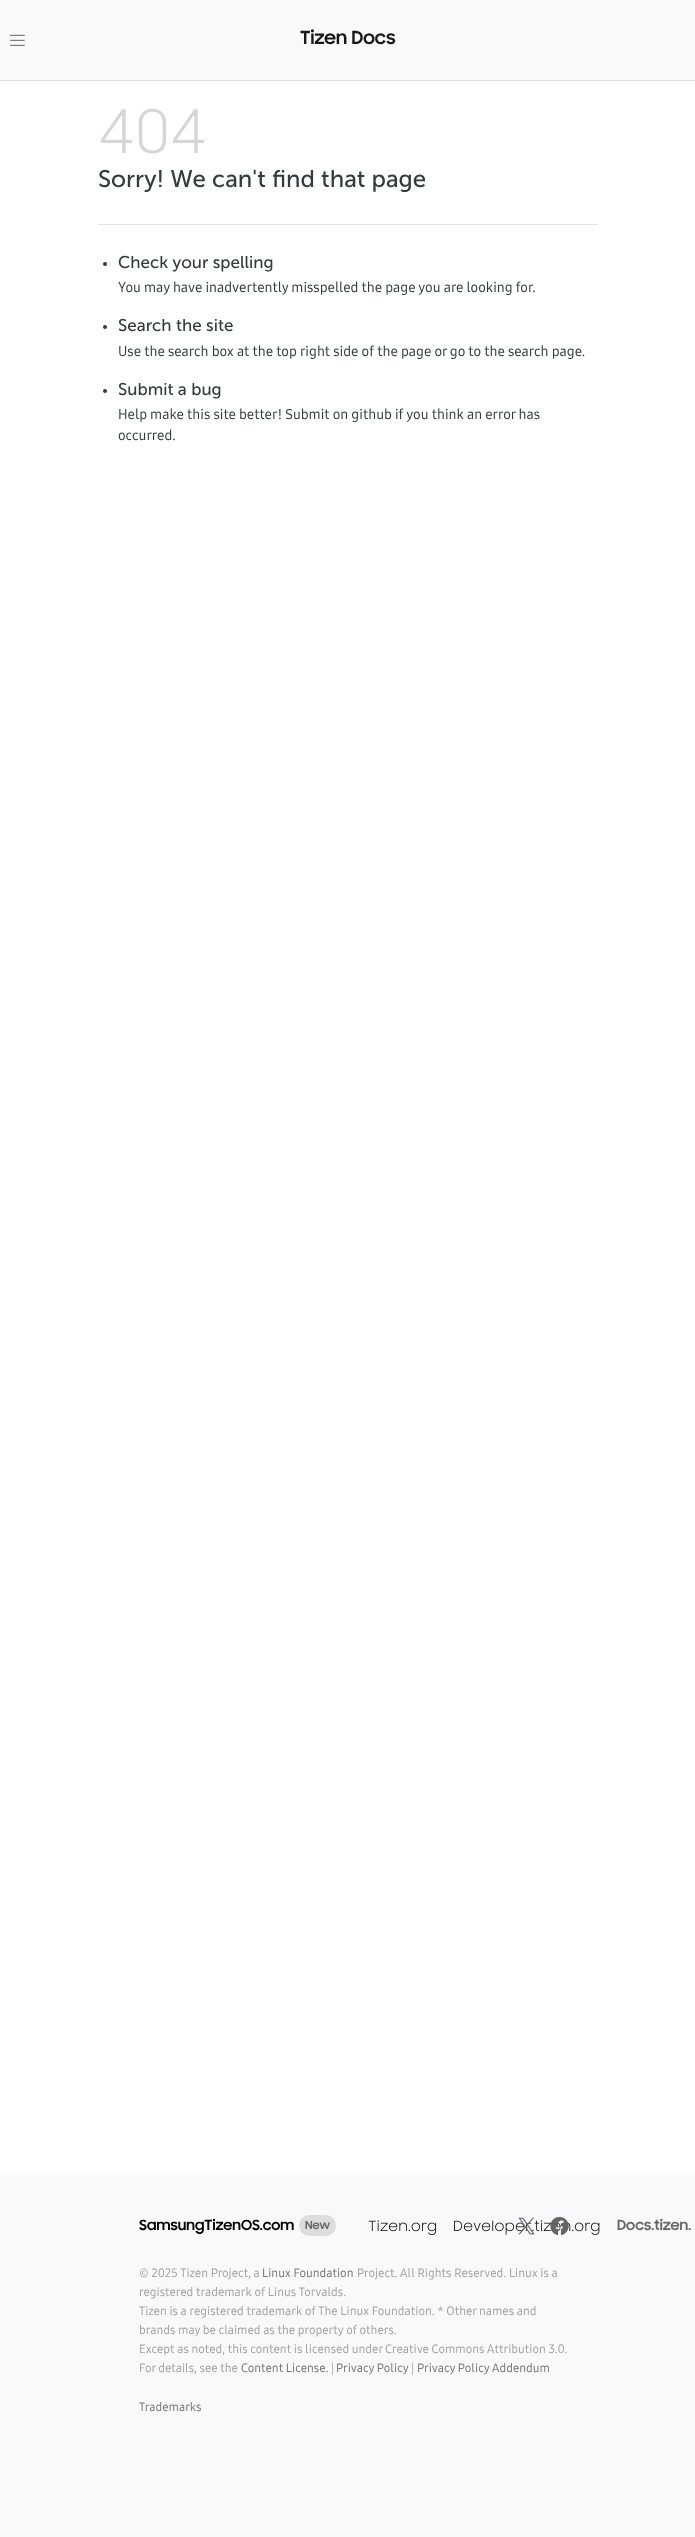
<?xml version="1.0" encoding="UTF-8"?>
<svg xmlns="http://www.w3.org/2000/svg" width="695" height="2537">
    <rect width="100%" height="100%" fill="#FFFFFF"/>
    <rect x="0" y="0" width="695" height="80" fill="#F9F9F9"/>
    <rect x="0" y="80" width="695" height="1" fill="#DDDDDD"/>
    <image x="10" y="34" width="15" height="12" href="img_01.png"/>
    <text x="300" y="44" font-family="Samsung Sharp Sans" font-size="18" font-weight="700" fill="#191919">Tizen Docs</text>
    <image x="100" y="108" width="105" height="46" href="img_02.png"/>
    <rect x="98" y="224" width="500" height="1" fill="#E5E5E5"/>
    <text x="98" y="187" font-family="Museo Sans" font-size="24" fill="#363A3E">Sorry! We can't find that page</text>
    <circle cx="105" cy="264" r="2" fill="#363A3E"/>
    <text x="118" y="268" font-family="Museo Sans" font-size="17" fill="#363A3E">Check your spelling</text>
    <text x="118" y="292" font-family="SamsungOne" font-size="14" font-weight="500" fill="#363A3E">You may have inadvertently misspelled the page you are looking for.</text>
    <circle cx="105" cy="327" r="2" fill="#363A3E"/>
    <text x="118" y="331" font-family="Museo Sans" font-size="17" fill="#363A3E">Search the site</text>
    <text x="118" y="356" font-family="SamsungOne" font-size="14" font-weight="500" fill="#363A3E">Use the search box at the top right side of the page or go to the search page.</text>
    <circle cx="105" cy="391" r="2" fill="#363A3E"/>
    <text x="118" y="395" font-family="Museo Sans" font-size="17" fill="#363A3E">Submit a bug</text>
    <text font-family="SamsungOne" font-size="14" font-weight="500" fill="#363A3E">
        <tspan x="118" y="419">Help make this site better! Submit on github if you think an error has</tspan>
        <tspan x="118" y="440">occurred.</tspan>
    </text>
    <rect x="0" y="2175" width="695" height="362" fill="#F9F9F9"/>
    <text x="139" y="2230" font-family="Samsung Sharp Sans" font-size="14" font-weight="700" fill="#000000">SamsungTizenOS.com</text>
    <image x="368" y="2220" width="69" height="15" href="img_03.png"/>
    <image x="454" y="2220" width="146" height="15" href="img_06.png"/>
    <image x="518" y="2217" width="17" height="18" href="img_04.png"/>
    <image x="550" y="2216" width="19" height="20" href="img_05.png"/>
    <text x="617" y="2230" font-family="Samsung Sharp Sans" font-size="14" font-weight="700" fill="#676768">Docs.tizen.</text>
    <rect x="299" y="2215" width="37" height="21" rx="10.5" fill="#DDDDDD"/>
    <text x="305" y="2229" font-family="Samsung Sharp Sans" font-size="11" font-weight="700" fill="#676768">New</text>
    <text x="139" y="2277" font-family="SamsungOne" font-size="12" font-weight="500" fill="#A3A3A3">© 2025 Tizen Project, a</text>
    <text x="262" y="2277" font-family="SamsungOne" font-size="12" font-weight="500" fill="#767676">Linux Foundation</text>
    <text x="357" y="2277" font-family="SamsungOne" font-size="12" font-weight="500" fill="#A3A3A3">Project. All Rights Reserved. Linux is a</text>
    <text font-family="SamsungOne" font-size="12" font-weight="500" fill="#A3A3A3">
        <tspan x="139" y="2296">registered trademark of Linus Torvalds.</tspan>
        <tspan x="139" y="2315">Tizen is a registered trademark of The Linux Foundation. * Other names and</tspan>
        <tspan x="139" y="2334">brands may be claimed as the property of others.</tspan>
        <tspan x="139" y="2353">Except as noted, this content is licensed under Creative Commons Attribution 3.0.</tspan>
        <tspan x="139" y="2372">For details, see the</tspan>
    </text>
    <text x="241" y="2372" font-family="SamsungOne" font-size="12" font-weight="500" fill="#767676">Content License.</text>
    <text x="331" y="2372" font-family="SamsungOne" font-size="12" font-weight="500" fill="#A3A3A3">|</text>
    <text x="336" y="2372" font-family="SamsungOne" font-size="12" font-weight="500" fill="#767676">Privacy Policy</text>
    <text x="411" y="2372" font-family="SamsungOne" font-size="12" font-weight="500" fill="#A3A3A3">|</text>
    <text x="417" y="2372" font-family="SamsungOne" font-size="12" font-weight="500" fill="#767676">Privacy Policy Addendum</text>
    <text x="139" y="2411" font-family="SamsungOne" font-size="12" font-weight="500" fill="#767676">Trademarks</text>
</svg>
